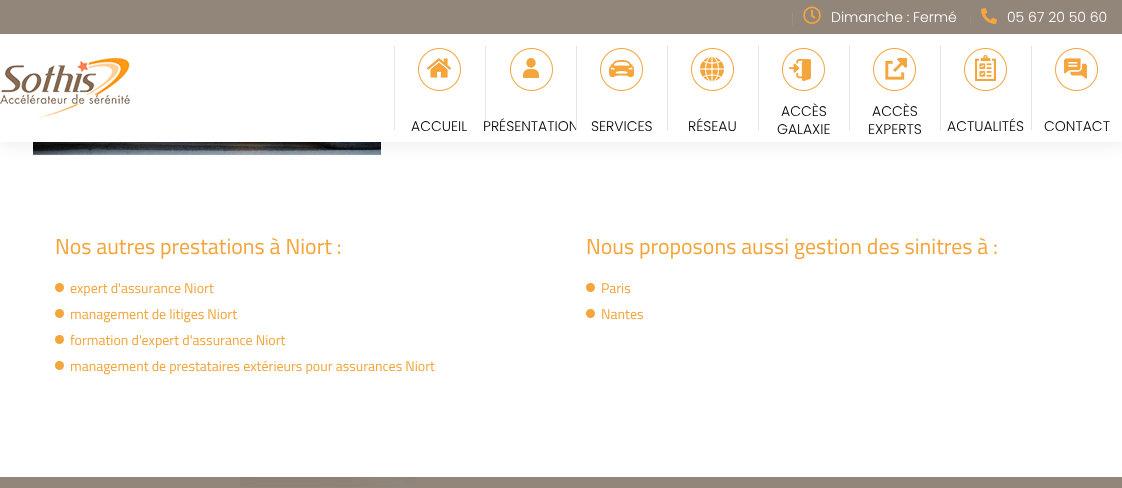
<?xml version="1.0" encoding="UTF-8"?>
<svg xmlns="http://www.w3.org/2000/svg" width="1122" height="488">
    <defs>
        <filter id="blur1" x="-50%" y="-200%" width="200%" height="500%"><feGaussianBlur stdDeviation="10"/></filter>
    </defs>
    <rect width="100%" height="100%" fill="#FFFFFF"/>
    <image x="33" y="142" width="348" height="13" href="img_12.png"/>
    <rect x="0" y="0" width="1122" height="142" fill="#000000" fill-opacity="0.1" filter="url(#blur1)"/>
    <rect x="0" y="0" width="1122" height="34" fill="#928579"/>
    <rect x="792" y="13" width="1" height="12" fill="#8E929A"/>
    <image x="803" y="6" width="18" height="18" href="img_01.png"/>
    <text x="831" y="22" font-family="Poppins" font-size="14" font-weight="300" fill="#FFFFFF">Dimanche : Fermé</text>
    <rect x="970" y="14" width="1" height="12" fill="#908D8D"/>
    <image x="981" y="8" width="16" height="16" href="img_02.png"/>
    <text x="1007" y="22" font-family="Poppins" font-size="14" font-weight="300" fill="#FFFFFF">05 67 20 50 60</text>
    <rect x="0" y="34" width="1122" height="108" fill="#FFFFFF"/>
    <image x="0" y="58" width="130" height="60" href="img_03.png"/>
    <rect x="394" y="46" width="1" height="84" fill="#E5E5E5"/>
    <image x="418" y="48" width="43" height="43" href="img_04.png"/>
    <text x="411" y="131" font-family="Poppins" font-size="14" font-weight="300" fill="#010101">ACCUEIL</text>
    <rect x="485" y="46" width="1" height="84" fill="#E5E5E5"/>
    <image x="510" y="48" width="43" height="43" href="img_05.png"/>
    <text x="483" y="131" font-family="Poppins" font-size="14" font-weight="300" fill="#010101">PRÉSENTATION</text>
    <rect x="576" y="121" width="2" height="10" fill="#FFFFFF"/>
    <rect x="576" y="46" width="1" height="84" fill="#E5E5E5"/>
    <image x="600" y="48" width="43" height="43" href="img_06.png"/>
    <text x="591" y="131" font-family="Poppins" font-size="14" font-weight="300" fill="#010101">SERVICES</text>
    <rect x="667" y="46" width="1" height="84" fill="#E5E5E5"/>
    <image x="691" y="48" width="43" height="43" href="img_07.png"/>
    <text x="688" y="131" font-family="Poppins" font-size="14" font-weight="300" fill="#010101">RÉSEAU</text>
    <rect x="758" y="46" width="1" height="84" fill="#E5E5E5"/>
    <image x="782" y="48" width="43" height="43" href="img_08.png"/>
    <text x="781" y="116" font-family="Poppins" font-size="14" font-weight="300" fill="#010101">ACCÈS</text>
    <text x="777" y="134" font-family="Poppins" font-size="14" font-weight="300" fill="#010101">GALAXIE</text>
    <rect x="849" y="46" width="1" height="84" fill="#E5E5E5"/>
    <image x="873" y="48" width="43" height="43" href="img_09.png"/>
    <text x="872" y="116" font-family="Poppins" font-size="14" font-weight="300" fill="#010101">ACCÈS</text>
    <text x="868" y="134" font-family="Poppins" font-size="14" font-weight="300" fill="#010101">EXPERTS</text>
    <rect x="940" y="46" width="1" height="84" fill="#E5E5E5"/>
    <image x="964" y="48" width="43" height="43" href="img_10.png"/>
    <text x="947" y="131" font-family="Poppins" font-size="14" font-weight="300" fill="#010101">ACTUALITÉS</text>
    <rect x="1031" y="46" width="1" height="84" fill="#E5E5E5"/>
    <image x="1055" y="48" width="43" height="43" href="img_11.png"/>
    <text x="1044" y="131" font-family="Poppins" font-size="14" font-weight="300" fill="#010101">CONTACT</text>
    <text x="55" y="254" font-family="Cairo" font-size="21.9" fill="#F4A53C">Nos autres prestations à Niort :</text>
    <circle cx="59.5" cy="287.5" r="4.5" fill="#F4A53C"/>
    <text x="70" y="293" font-family="Cairo" font-size="14" fill="#F4A53C">expert d'assurance Niort</text>
    <circle cx="59.5" cy="313.5" r="4.5" fill="#F4A53C"/>
    <text x="70" y="319" font-family="Cairo" font-size="14" fill="#F4A53C">management de litiges Niort</text>
    <circle cx="59.5" cy="339.5" r="4.5" fill="#F4A53C"/>
    <text x="70" y="345" font-family="Cairo" font-size="14" fill="#F4A53C">formation d'expert d'assurance Niort</text>
    <circle cx="59.5" cy="365.5" r="4.5" fill="#F4A53C"/>
    <text x="70" y="371" font-family="Cairo" font-size="14" fill="#F4A53C">management de prestataires extérieurs pour assurances Niort</text>
    <text x="586" y="254" font-family="Cairo" font-size="21.9" fill="#F4A53C">Nous proposons aussi gestion des sinitres à :</text>
    <circle cx="590.5" cy="287.5" r="4.5" fill="#F4A53C"/>
    <text x="601" y="293" font-family="Cairo" font-size="14" fill="#F4A53C">Paris</text>
    <circle cx="590.5" cy="313.5" r="4.5" fill="#F4A53C"/>
    <text x="601" y="319" font-family="Cairo" font-size="14" fill="#F4A53C">Nantes</text>
    <rect x="0" y="477" width="1122" height="11" fill="#928579"/>
    <image x="240" y="477" width="176" height="10" href="img_13.png"/>
</svg>
